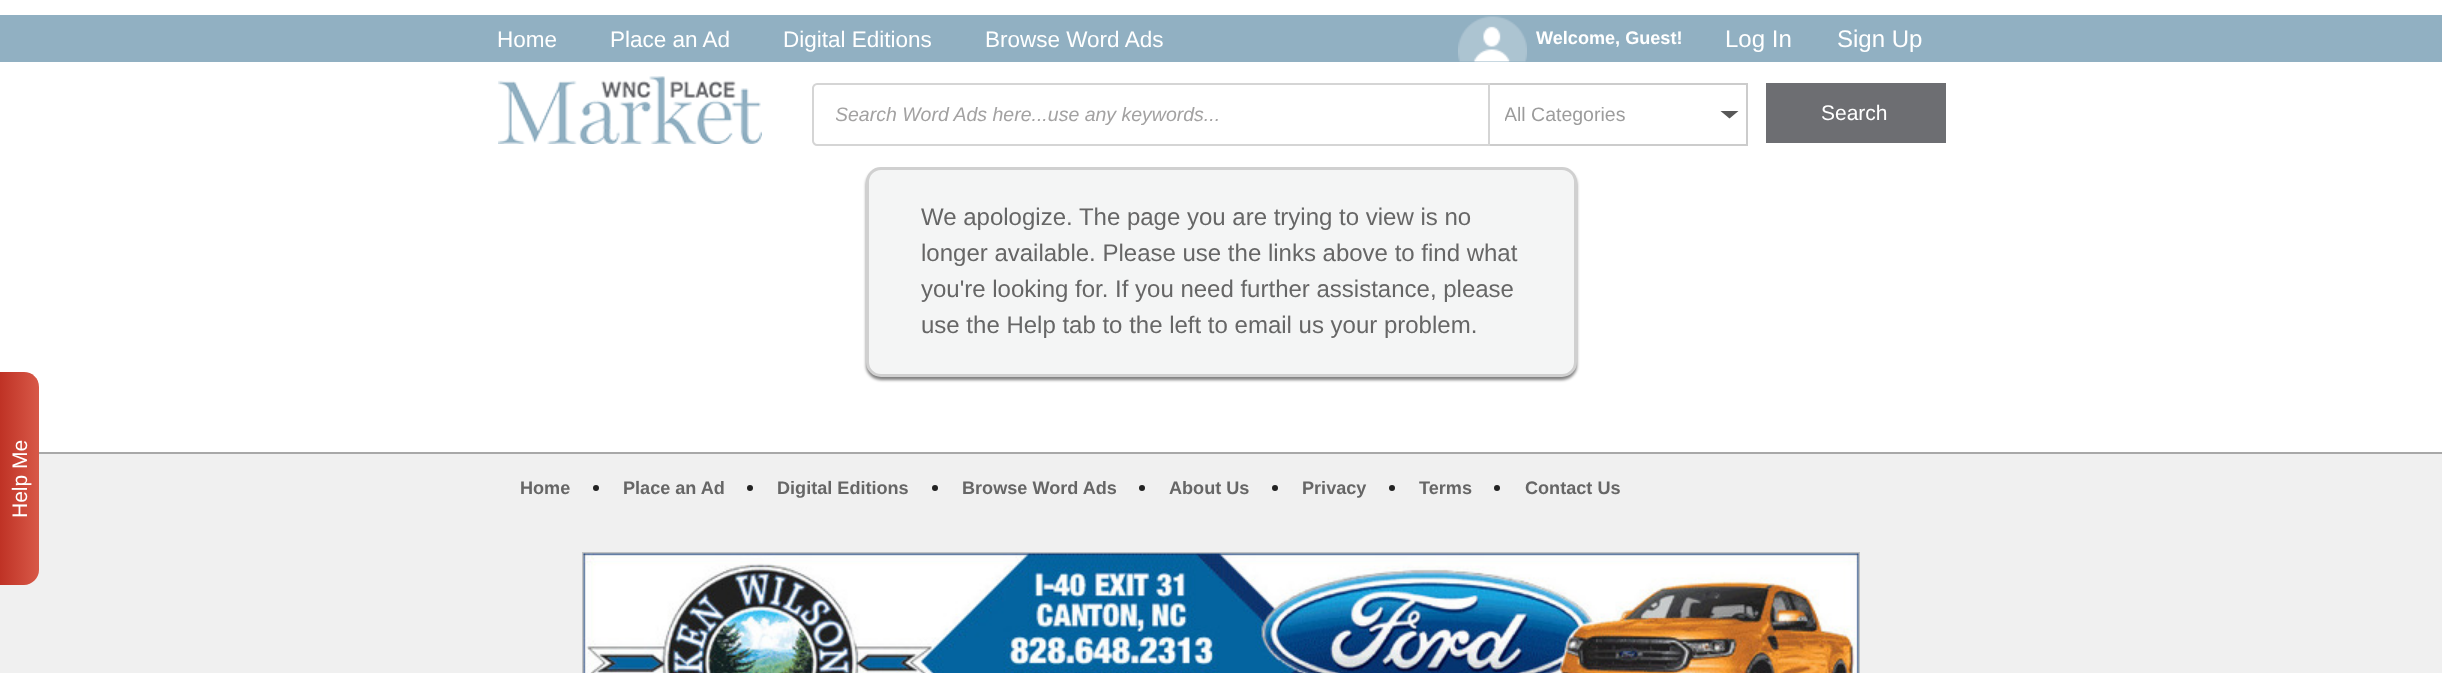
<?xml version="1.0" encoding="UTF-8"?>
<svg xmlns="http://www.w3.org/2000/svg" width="2442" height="673">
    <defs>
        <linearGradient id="g1" gradientUnits="userSpaceOnUse" x1="0" y1="478" x2="39" y2="478"><stop offset="0" stop-color="#BF3225"/><stop offset="1" stop-color="#D85948"/></linearGradient>
        <clipPath id="clip1"><rect x="836" y="104" width="630" height="22"/></clipPath>
        <clipPath id="clip2"><rect x="1505" y="104" width="241" height="22"/></clipPath>
        <filter id="blur1" x="-50%" y="-200%" width="200%" height="500%"><feGaussianBlur stdDeviation="1.5"/></filter>
    </defs>
    <rect width="100%" height="100%" fill="#F0F0F0"/>
    <rect x="0" y="0" width="2442" height="452" fill="#FFFFFF"/>
    <path d="M 0 585 V 372 H 24 C 32 372 39 378 39 387 V 570 C 39 578 32 585 24 585 Z" fill="url(#g1)"/>
    <text x="27" y="518" transform="rotate(-90 27 518)" font-family="Liberation Sans" font-size="21" fill="#FFFFFF">Help Me</text>
    <rect x="0" y="15" width="2442" height="47" fill="#91B0C2"/>
    <text x="497" y="47" font-family="Liberation Sans" font-size="22.5" fill="#FFFFFF">Home</text>
    <text x="610" y="47" font-family="Liberation Sans" font-size="22.5" fill="#FFFFFF">Place an Ad</text>
    <text x="783" y="47" font-family="Liberation Sans" font-size="22.5" fill="#FFFFFF">Digital Editions</text>
    <text x="985" y="47" font-family="Liberation Sans" font-size="22.5" fill="#FFFFFF">Browse Word Ads</text>
    <image x="1458" y="16" width="69" height="46" href="img_01.png"/>
    <text x="1536" y="44" font-family="Liberation Sans" font-size="18.1" font-weight="700" fill="#FFFFFF">Welcome, Guest!</text>
    <text x="1725" y="47" font-family="Liberation Sans" font-size="24" fill="#FFFFFF">Log In</text>
    <text x="1837" y="47" font-family="Liberation Sans" font-size="24" fill="#FFFFFF">Sign Up</text>
    <image x="498" y="76" width="264" height="68" href="img_02.png"/>
    <path d="M 817 84 H 1489 V 145 H 817 C 815 145 813 143 813 141 V 88 C 813 86 815 84 817 84 Z" fill="none" stroke="#D5D5D5" stroke-width="2"/>
    <g clip-path="url(#clip1)">
        <text x="835" y="121" font-family="Liberation Sans" font-size="19.5" font-style="italic" fill="#A3A2A2">Search Word Ads here...use any keywords...</text>
    </g>
    <rect x="1490" y="83" width="258" height="2" fill="#CCCCCC"/>
    <rect x="1746" y="83" width="2" height="63" fill="#CCCCCC"/>
    <rect x="1490" y="144" width="258" height="2" fill="#CCCCCC"/>
    <g clip-path="url(#clip2)">
        <text x="1504" y="121" font-family="Liberation Sans" font-size="19.5" fill="#9C9C9C">All Categories</text>
    </g>
    <path d="M 1720.5 111 H 1738.5 L 1729.5 118.5 Z" fill="#585858"/>
    <rect x="1766" y="83" width="180" height="60" fill="#6D6E72"/>
    <text x="1821" y="120" font-family="Liberation Sans" font-size="21" fill="#FFFFFF">Search</text>
    <rect x="866" y="170" width="711" height="210" rx="15" fill="#000000" fill-opacity="0.5" filter="url(#blur1)"/>
    <rect x="867.5" y="168.5" width="708" height="207" rx="13.5" fill="#F4F5F5" stroke="#D0D0D0" stroke-width="3"/>
    <text font-family="Liberation Sans" font-size="24" fill="#666666">
        <tspan x="921" y="225">We apologize. The page you are trying to view is no</tspan>
        <tspan x="921" y="261">longer available. Please use the links above to find what</tspan>
        <tspan x="921" y="297">you're looking for. If you need further assistance, please</tspan>
        <tspan x="921" y="333">use the Help tab to the left to email us your problem.</tspan>
    </text>
    <rect x="39" y="452" width="2403" height="2" fill="#A8A8A8"/>
    <text x="520" y="494" font-family="Liberation Sans" font-size="18.1" font-weight="700" fill="#666666">Home</text>
    <circle cx="596" cy="488" r="3" fill="#222222"/>
    <text x="623" y="494" font-family="Liberation Sans" font-size="18.1" font-weight="700" fill="#666666">Place an Ad</text>
    <circle cx="750" cy="488" r="3" fill="#222222"/>
    <text x="777" y="494" font-family="Liberation Sans" font-size="18.1" font-weight="700" fill="#666666">Digital Editions</text>
    <circle cx="935" cy="488" r="3" fill="#222222"/>
    <text x="962" y="494" font-family="Liberation Sans" font-size="18.1" font-weight="700" fill="#666666">Browse Word Ads</text>
    <circle cx="1142" cy="488" r="3" fill="#222222"/>
    <text x="1169" y="494" font-family="Liberation Sans" font-size="18.1" font-weight="700" fill="#666666">About Us</text>
    <circle cx="1275" cy="488" r="3" fill="#222222"/>
    <text x="1302" y="494" font-family="Liberation Sans" font-size="18.1" font-weight="700" fill="#666666">Privacy</text>
    <circle cx="1392" cy="488" r="3" fill="#222222"/>
    <text x="1419" y="494" font-family="Liberation Sans" font-size="18.1" font-weight="700" fill="#666666">Terms</text>
    <circle cx="1497" cy="488" r="3" fill="#222222"/>
    <text x="1525" y="494" font-family="Liberation Sans" font-size="18.1" font-weight="700" fill="#666666">Contact Us</text>
    <rect x="583" y="553" width="1276" height="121" fill="none" stroke="#C0C2C2" stroke-width="2"/>
    <image x="583" y="553" width="1276" height="120" href="img_03.png"/>
</svg>
